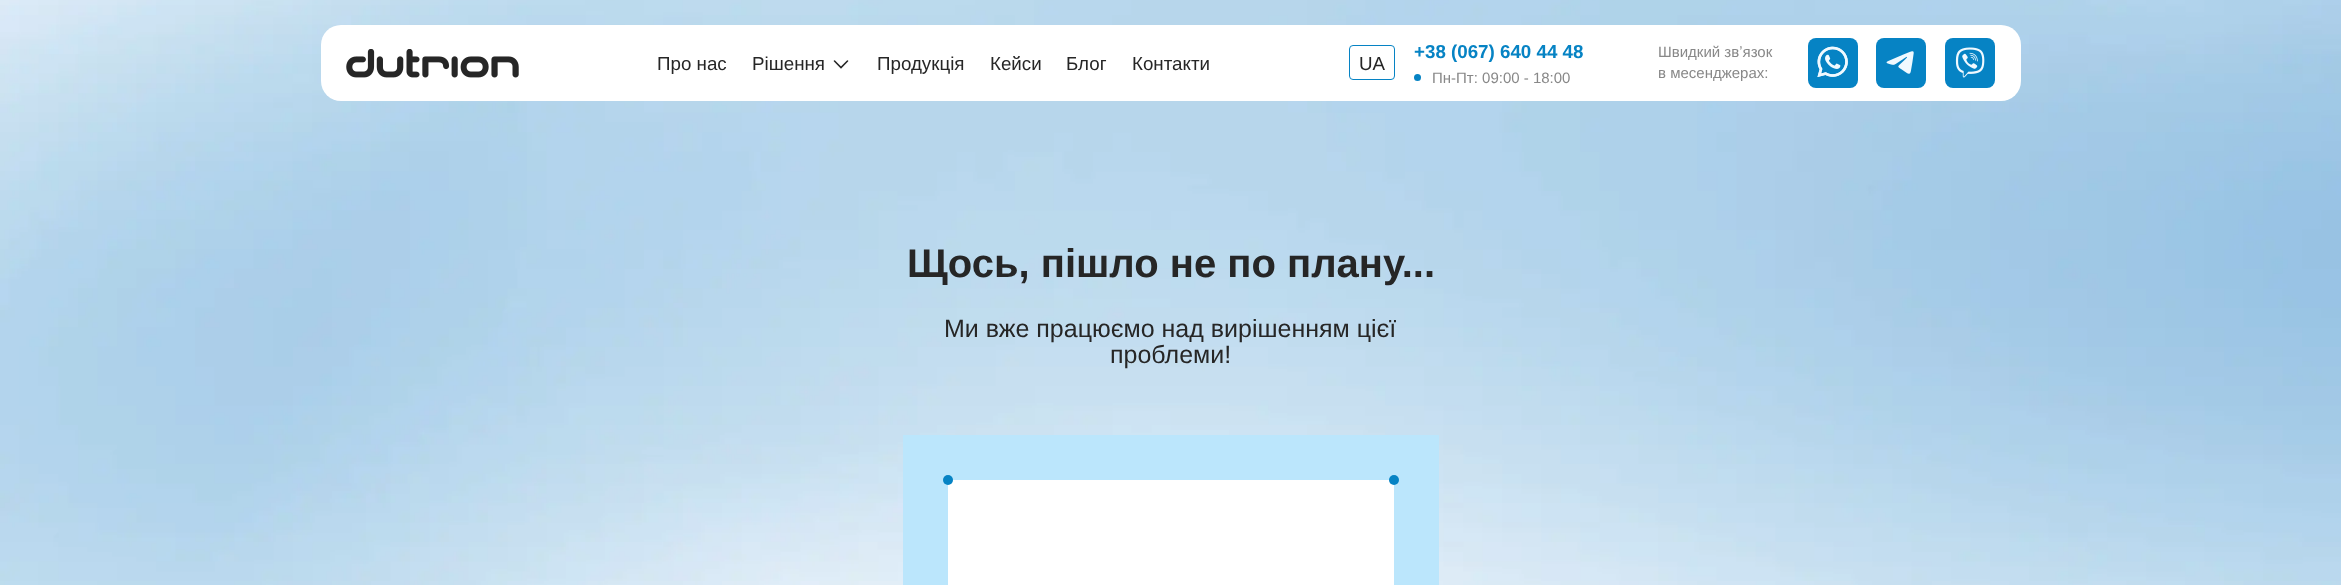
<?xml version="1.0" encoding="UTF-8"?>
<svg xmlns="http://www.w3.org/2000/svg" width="2341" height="585">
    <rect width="100%" height="100%" fill="#FFFFFF"/>
    <image x="0" y="0" width="2341" height="585" href="img_05.png"/>
    <rect x="321" y="25" width="1700" height="76" rx="20" fill="#FFFFFF"/>
    <image x="346" y="49" width="173" height="29" href="img_01.png"/>
    <text x="657" y="70" font-family="Liberation Sans" font-size="18.75" fill="#262626">Про нас</text>
    <text x="752" y="70" font-family="Liberation Sans" font-size="18.75" fill="#262626">Рішення</text>
    <path d="M 847.5 61 L 841 67.5 L 834.5 61" fill="none" stroke="#262626" stroke-width="1.6" stroke-linecap="round"/>
    <text x="877" y="70" font-family="Liberation Sans" font-size="18.75" fill="#262626">Продукція</text>
    <text x="990" y="70" font-family="Liberation Sans" font-size="18.75" fill="#262626">Кейси</text>
    <text x="1066" y="70" font-family="Liberation Sans" font-size="18.75" fill="#262626">Блог</text>
    <text x="1132" y="70" font-family="Liberation Sans" font-size="18.75" fill="#262626">Контакти</text>
    <rect x="1349.5" y="45.5" width="45" height="34" rx="3.5" fill="none" stroke="#0683C4"/>
    <text x="1359" y="70" font-family="Liberation Sans" font-size="18.75" fill="#262626">UA</text>
    <text x="1414" y="58" font-family="Liberation Sans" font-size="18.75" font-weight="700" fill="#0683C4">+38 (067) 640 44 48</text>
    <circle cx="1417.5" cy="77.5" r="3.5" fill="#0683C4"/>
    <text x="1432" y="83" font-family="Liberation Sans" font-size="15" fill="#888888">Пн-Пт: 09:00 - 18:00</text>
    <text font-family="Liberation Sans" font-size="15" fill="#888888">
        <tspan x="1658" y="57">Швидкий звʼязок</tspan>
        <tspan x="1658" y="78">в месенджерах:</tspan>
    </text>
    <rect x="1808" y="38" width="50" height="50" rx="8" fill="#0683C4"/>
    <image x="1817" y="46" width="31" height="31" href="img_02.png"/>
    <rect x="1876" y="38" width="50" height="50" rx="8" fill="#0683C4"/>
    <image x="1886" y="51" width="28" height="23" href="img_03.png"/>
    <rect x="1945" y="38" width="50" height="50" rx="8" fill="#0683C4"/>
    <image x="1955" y="47" width="30" height="31" href="img_04.png"/>
    <text x="907" y="277" font-family="Liberation Sans" font-size="40" font-weight="700" fill="#262626">Щось, пішло не по плану...</text>
    <text x="944" y="337" font-family="Liberation Sans" font-size="25" fill="#262626">Ми вже працюємо над вирішенням цієї</text>
    <text x="1110" y="363" font-family="Liberation Sans" font-size="25" fill="#262626">проблеми!</text>
    <rect x="903" y="435" width="536" height="150" fill="#BBE6FC"/>
    <rect x="948" y="480" width="446" height="105" fill="#FFFFFF"/>
    <circle cx="948" cy="480" r="5" fill="#0683C4"/>
    <circle cx="1394" cy="480" r="5" fill="#0683C4"/>
</svg>
